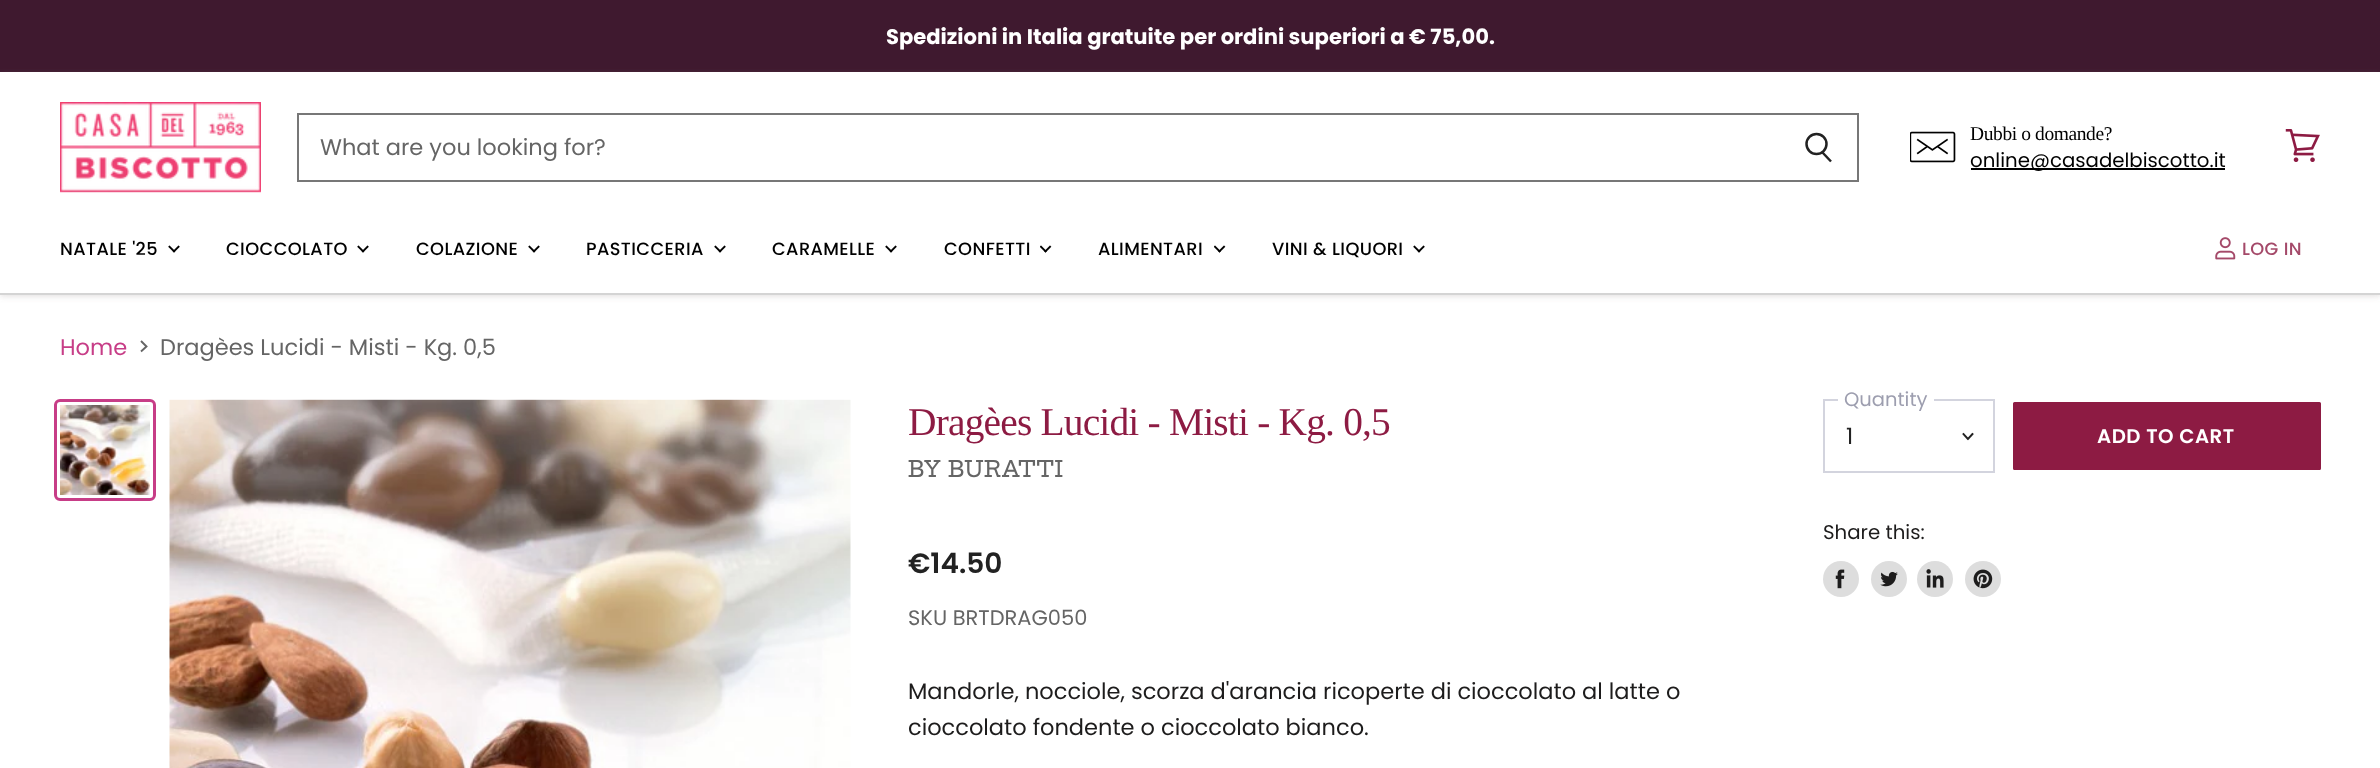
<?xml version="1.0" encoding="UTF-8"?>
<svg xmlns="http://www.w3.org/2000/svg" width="2380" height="768">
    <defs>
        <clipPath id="clip1"><path d="M 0 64 H 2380 V 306 H 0 Z M 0 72 H 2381 V 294 H 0 Z" clip-rule="evenodd"/></clipPath>
        <filter id="blur1" x="-50%" y="-200%" width="200%" height="500%"><feGaussianBlur stdDeviation="3"/></filter>
    </defs>
    <rect width="100%" height="100%" fill="#FFFFFF"/>
    <rect x="0" y="0" width="2380" height="72" fill="#3F192F"/>
    <text x="886" y="44" font-family="Poppins" font-size="21.1" font-weight="700" fill="#FFFFFF">Spedizioni in Italia gratuite per ordini superiori a € 75,00.</text>
    <g clip-path="url(#clip1)">
        <rect x="0" y="74" width="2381" height="222" fill="#837777" fill-opacity="0.25" filter="url(#blur1)"/>
    </g>
    <rect x="0" y="293" width="2380" height="2" fill="#D4D4D4"/>
    <image x="60" y="102" width="201" height="91" href="img_01.png"/>
    <rect x="297" y="113" width="1562" height="2" fill="#777777"/>
    <rect x="1857" y="113" width="2" height="69" fill="#777777"/>
    <rect x="297" y="180" width="1562" height="2" fill="#777777"/>
    <path d="M 1831 161.5 L 1822.5 152.5" fill="none" stroke="#222222" stroke-width="2.5"/>
    <circle cx="1816.5" cy="144" r="10" fill="none" stroke="#222222" stroke-width="2.5"/>
    <rect x="297" y="113" width="2" height="69" fill="#777777"/>
    <text x="320" y="155" font-family="Poppins" font-size="22.5" fill="#656565">What are you looking for?</text>
    <image x="1910" y="131" width="46" height="32" href="img_02.png"/>
    <text x="1970" y="140" font-family="Liberation Serif" font-size="19.5" letter-spacing="-0.4" fill="#000000">Dubbi o domande?</text>
    <rect x="1971" y="168" width="254" height="2" fill="#000000"/>
    <text x="1970" y="167" font-family="Poppins" font-size="19.75" fill="#000000">online@casadelbiscotto.it</text>
    <image x="2285" y="129" width="35" height="33" href="img_03.png"/>
    <text x="60" y="255" font-family="Poppins" font-size="17.75" font-weight="500" letter-spacing="0.4" fill="#000000">NATALE '25</text>
    <image x="168" y="245" width="12" height="8" href="img_04.png"/>
    <text x="226" y="255" font-family="Poppins" font-size="17.75" font-weight="500" letter-spacing="0.4" fill="#000000">CIOCCOLATO</text>
    <image x="357" y="245" width="12" height="8" href="img_04.png"/>
    <text x="416" y="255" font-family="Poppins" font-size="17.75" font-weight="500" letter-spacing="0.4" fill="#000000">COLAZIONE</text>
    <image x="528" y="245" width="12" height="8" href="img_04.png"/>
    <text x="586" y="255" font-family="Poppins" font-size="17.75" font-weight="500" letter-spacing="0.4" fill="#000000">PASTICCERIA</text>
    <image x="714" y="245" width="12" height="8" href="img_04.png"/>
    <text x="772" y="255" font-family="Poppins" font-size="17.75" font-weight="500" letter-spacing="0.4" fill="#000000">CARAMELLE</text>
    <image x="885" y="245" width="12" height="8" href="img_04.png"/>
    <text x="944" y="255" font-family="Poppins" font-size="17.75" font-weight="500" letter-spacing="0.4" fill="#000000">CONFETTI</text>
    <image x="1040" y="245" width="12" height="8" href="img_05.png"/>
    <text x="1098" y="255" font-family="Poppins" font-size="17.75" font-weight="500" letter-spacing="0.4" fill="#000000">ALIMENTARI</text>
    <image x="1214" y="245" width="12" height="8" href="img_05.png"/>
    <text x="1272" y="255" font-family="Poppins" font-size="17.75" font-weight="500" letter-spacing="0.4" fill="#000000">VINI &amp; LIQUORI</text>
    <image x="1413" y="245" width="12" height="8" href="img_04.png"/>
    <image x="2215" y="237" width="21" height="23" href="img_06.png"/>
    <text x="2242" y="255" font-family="Poppins" font-size="17.75" font-weight="500" letter-spacing="0.4" fill="#A44969">LOG IN</text>
    <text x="60" y="355" font-family="Poppins" font-size="22.5" fill="#C73D87">Home</text>
    <path d="M 141 351.5 L 146.5 346.5 L 141 341" fill="none" stroke="#656565" stroke-width="1.9"/>
    <text x="160" y="355" font-family="Poppins" font-size="22.5" fill="#656565">Dragèes Lucidi - Misti - Kg. 0,5</text>
    <rect x="55.5" y="400.5" width="99" height="99" rx="4.5" fill="none" stroke="#C73D87" stroke-width="3"/>
    <image x="60" y="405" width="90" height="90" href="img_07.png"/>
    <image x="169" y="399" width="682" height="369" href="img_08.png"/>
    <text x="908" y="435" font-family="Liberation Serif" font-size="39.4" letter-spacing="-0.8" fill="#8D1B43">Dragèes Lucidi - Misti - Kg. 0,5</text>
    <text x="908" y="477" font-family="Hepta Slab" font-size="22.5" font-weight="500" letter-spacing="0.75" fill="#656565">BY</text>
    <text x="948" y="477" font-family="Hepta Slab" font-size="22.5" font-weight="500" letter-spacing="0.75" fill="#656565">BURATTI</text>
    <text x="908" y="573" font-family="Poppins" font-size="28" font-weight="600" fill="#222222">€14.50</text>
    <text x="908" y="625" font-family="Poppins" font-size="21" fill="#656565">SKU BRTDRAG050</text>
    <text font-family="Poppins" font-size="22.5" fill="#1D1C1C">
        <tspan x="908" y="699">Mandorle, nocciole, scorza d'arancia ricoperte di cioccolato al latte o</tspan>
        <tspan x="908" y="735">cioccolato fondente o cioccolato bianco.</tspan>
    </text>
    <rect x="1824" y="400" width="170" height="72" fill="none" stroke="#D3D4DE" stroke-width="2"/>
    <rect x="1838" y="399" width="96" height="2" fill="#FFFFFF"/>
    <text x="1844" y="406" font-family="Poppins" font-size="19.5" fill="#9D9EAF">Quantity</text>
    <text x="1846" y="444" font-family="Poppins" font-size="22.5" fill="#222222">1</text>
    <path d="M 1968 439 L 1972.5 434 M 1968 439 L 1963.5 434" fill="none" stroke="#212121" stroke-width="1.9" stroke-linecap="square"/>
    <rect x="2014" y="403" width="306" height="66" rx="0.5" fill="#8D1B43" stroke="#8D1B43" stroke-width="2"/>
    <text x="2097" y="443" font-family="Poppins" font-size="19.75" font-weight="600" letter-spacing="0.5" fill="#FFFFFF">ADD TO CART</text>
    <text x="1823" y="539" font-family="Poppins" font-size="19.75" fill="#1D1C1C">Share this:</text>
    <circle cx="1841" cy="579" r="18" fill="#DDDDDD"/>
    <image x="1835" y="569" width="10" height="20" href="img_09.png"/>
    <circle cx="1889" cy="579" r="18" fill="#DDDDDD"/>
    <image x="1880" y="571" width="18" height="16" href="img_10.png"/>
    <circle cx="1935" cy="579" r="18" fill="#DDDDDD"/>
    <image x="1926" y="569" width="18" height="19" href="img_11.png"/>
    <circle cx="1983" cy="579" r="18" fill="#DDDDDD"/>
    <image x="1973" y="569" width="20" height="20" href="img_12.png"/>
</svg>
